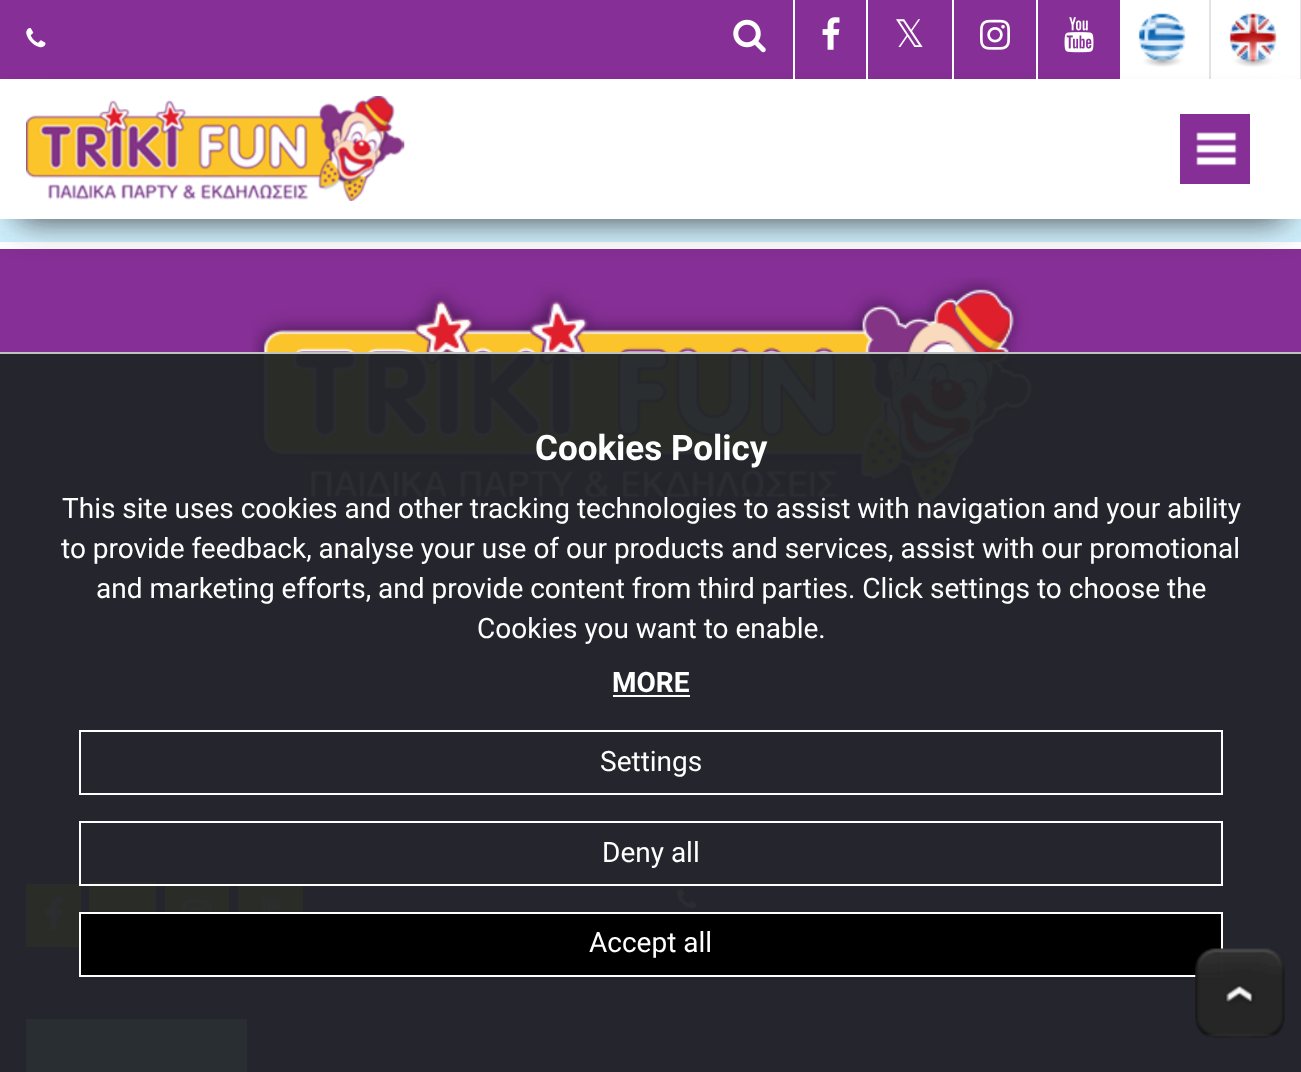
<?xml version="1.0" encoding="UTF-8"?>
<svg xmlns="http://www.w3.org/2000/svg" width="1301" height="1072">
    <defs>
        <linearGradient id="g1" gradientUnits="userSpaceOnUse" x1="651" y1="-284" x2="651" y2="242"><stop offset="0" stop-color="#FFFFFF"/><stop offset="0.5" stop-color="#D0F1FF"/><stop offset="1" stop-color="#D0F1FF"/></linearGradient>
        <filter id="blur1" x="-50%" y="-200%" width="200%" height="500%"><feGaussianBlur stdDeviation="17.5"/></filter>
    </defs>
    <rect width="100%" height="100%" fill="#FFFFFF"/>
    <rect x="0" y="0" width="1120" height="79" fill="#862F96"/>
    <image x="26" y="28" width="20" height="20" href="img_01.png"/>
    <rect x="793" y="0" width="2" height="79" fill="#FFFFFF"/>
    <image x="733" y="19" width="33" height="34" href="img_02.png"/>
    <rect x="866" y="0" width="2" height="79" fill="#FFFFFF"/>
    <image x="822" y="17" width="18" height="33" href="img_03.png"/>
    <rect x="952" y="0" width="2" height="79" fill="#FFFFFF"/>
    <text x="894" y="47" font-family="DejaVu Sans" font-size="38" fill="#FFFFFF">𝕏</text>
    <rect x="1036" y="0" width="2" height="79" fill="#FFFFFF"/>
    <image x="980" y="19" width="30" height="31" href="img_04.png"/>
    <image x="1064" y="17" width="30" height="36" href="img_05.png"/>
    <rect x="1209" y="0" width="2" height="79" fill="#E4E2E2"/>
    <image x="1138" y="13" width="48" height="54" href="img_06.png"/>
    <rect x="1300" y="0" width="1" height="79" fill="#E4E2E2"/>
    <image x="1229" y="13" width="48" height="54" href="img_07.png"/>
    <rect x="0" y="219" width="1301" height="23" fill="url(#g1)"/>
    <rect x="0" y="249" width="1301" height="823" fill="#862F96"/>
    <rect x="18" y="114" width="1267" height="105" fill="#373737" filter="url(#blur1)"/>
    <rect x="0" y="79" width="1301" height="140" fill="#FFFFFF"/>
    <image x="26" y="96" width="379" height="105" href="img_08.png"/>
    <rect x="1180" y="114" width="70" height="70" fill="#862F96"/>
    <image x="1196" y="132" width="41" height="34" href="img_09.png"/>
    <image x="252" y="277" width="788" height="234" href="img_10.png"/>
    <rect x="26" y="884" width="55" height="63" fill="#FBC924"/>
    <image x="45" y="897" width="18" height="33" href="img_11.png"/>
    <rect x="89" y="882" width="67" height="30" fill="#FBC924"/>
    <rect x="165" y="886" width="64" height="26" fill="#FBC924"/>
    <image x="182" y="900" width="30" height="12" href="img_12.png"/>
    <rect x="238" y="886" width="65" height="26" fill="#FBC924"/>
    <image x="260" y="897" width="20" height="14" href="img_13.png"/>
    <rect x="26" y="1019" width="221" height="53" fill="#D0F1FF"/>
    <image x="677" y="889" width="20" height="20" href="img_01.png"/>
    <rect x="0" y="352" width="1301" height="2" fill="#C1C1C1"/>
    <rect x="0" y="354" width="1301" height="718" fill="#212529" fill-opacity="0.96"/>
    <text x="535" y="460" font-family="Roboto" font-size="35" font-weight="700" fill="#FFFFFF">Cookies Policy</text>
    <text x="62" y="518" font-family="Roboto" font-size="28" fill="#FFFFFF">This site uses cookies and other tracking technologies to assist with navigation and your ability</text>
    <text x="61" y="558" font-family="Roboto" font-size="28" fill="#FFFFFF">to provide feedback, analyse your use of our products and services, assist with our promotional</text>
    <text x="96" y="598" font-family="Roboto" font-size="28" fill="#FFFFFF">and marketing efforts, and provide content from third parties. Click settings to choose the</text>
    <text x="477" y="638" font-family="Roboto" font-size="28" fill="#FFFFFF">Cookies you want to enable.</text>
    <text x="612" y="692" font-family="Roboto" font-size="28" font-weight="700" fill="#FFFFFF">MORE</text>
    <rect x="613" y="695" width="77" height="2" fill="#FFFFFF"/>
    <rect x="80" y="731" width="1142" height="63" fill="none" stroke="#FFFFFF" stroke-width="2"/>
    <text x="600" y="771" font-family="Roboto" font-size="28" fill="#FFFFFF">Settings</text>
    <rect x="80" y="822" width="1142" height="63" fill="none" stroke="#FFFFFF" stroke-width="2"/>
    <text x="602" y="862" font-family="Roboto" font-size="28" fill="#FFFFFF">Deny all</text>
    <rect x="80" y="913" width="1142" height="63" fill="#000000" stroke="#FFFFFF" stroke-width="2"/>
    <text x="589" y="952" font-family="Roboto" font-size="28" fill="#FFFFFF">Accept all</text>
    <image x="1195" y="948" width="90" height="90" href="img_14.png"/>
</svg>
